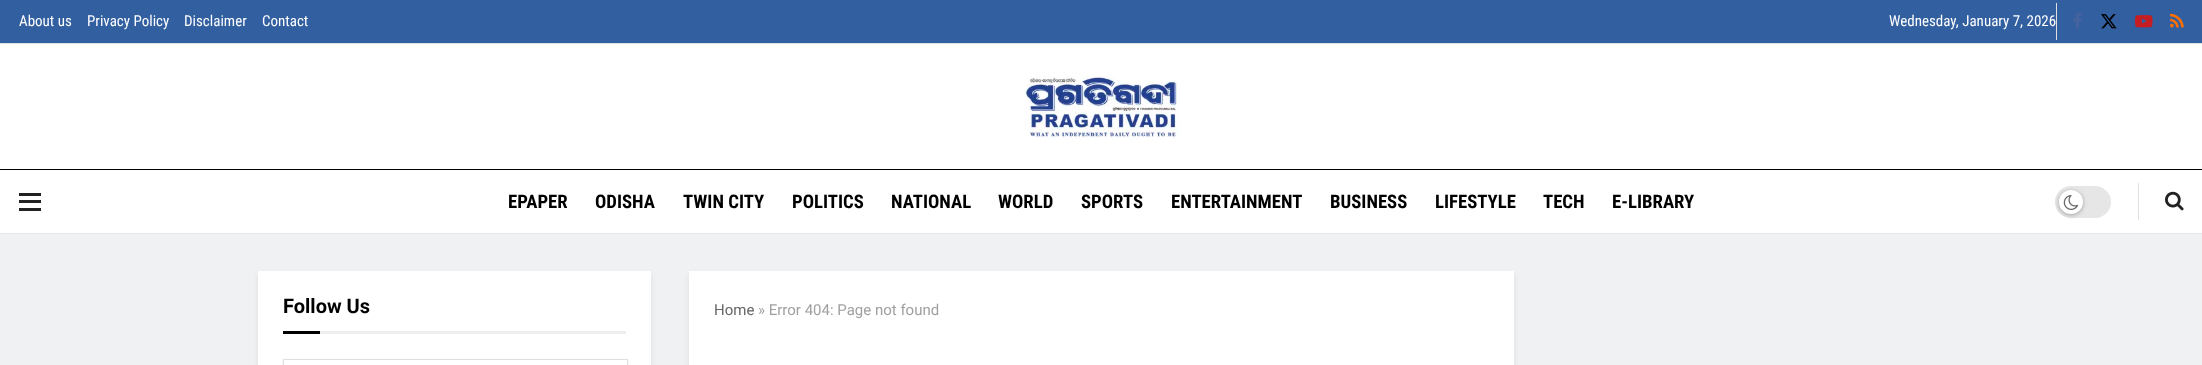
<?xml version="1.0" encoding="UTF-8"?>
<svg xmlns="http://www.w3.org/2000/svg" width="2202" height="365">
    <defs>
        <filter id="blur1" x="-50%" y="-200%" width="200%" height="500%"><feGaussianBlur stdDeviation="2"/></filter>
        <filter id="blur2" x="-50%" y="-200%" width="200%" height="500%"><feGaussianBlur stdDeviation="2.5"/></filter>
        <filter id="blur3" x="-50%" y="-200%" width="200%" height="500%"><feGaussianBlur stdDeviation="1"/></filter>
    </defs>
    <rect width="100%" height="100%" fill="#FFFFFF"/>
    <rect x="0" y="0" width="2202" height="43" fill="#325FA0"/>
    <rect x="0" y="43" width="2202" height="1" fill="#E0E0E0"/>
    <text x="19" y="26" font-family="Roboto Condensed" font-size="15" fill="#FFFFFF">About us</text>
    <text x="87" y="26" font-family="Roboto Condensed" font-size="15" fill="#FFFFFF">Privacy Policy</text>
    <text x="184" y="26" font-family="Roboto Condensed" font-size="15" fill="#FFFFFF">Disclaimer</text>
    <text x="262" y="26" font-family="Roboto Condensed" font-size="15" fill="#FFFFFF">Contact</text>
    <text x="1889" y="26" font-family="Roboto Condensed" font-size="15" fill="#FFFFFF">Wednesday, January 7, 2026</text>
    <rect x="2056" y="3" width="1" height="37" fill="#E0E0E0"/>
    <image x="2073" y="12" width="9" height="17" href="img_01.png"/>
    <image x="2101" y="14" width="16" height="15" href="img_02.png"/>
    <image x="2135" y="15" width="18" height="13" href="img_03.png"/>
    <image x="2170" y="13" width="14" height="15" href="img_04.png"/>
    <image x="1025" y="76" width="155" height="63" href="img_05.png"/>
    <rect x="0" y="169" width="2202" height="1" fill="#000000"/>
    <rect x="0" y="233" width="2202" height="1" fill="#E8E8E8"/>
    <rect x="19" y="193" width="22" height="3" fill="#212121"/>
    <rect x="19" y="200" width="22" height="3" fill="#212121"/>
    <rect x="19" y="208" width="22" height="3" fill="#212121"/>
    <text x="508" y="208" font-family="Roboto Condensed" font-size="18.75" font-weight="700" fill="#000000">EPAPER</text>
    <text x="595" y="208" font-family="Roboto Condensed" font-size="18.75" font-weight="700" fill="#000000">ODISHA</text>
    <text x="683" y="208" font-family="Roboto Condensed" font-size="18.75" font-weight="700" fill="#000000">TWIN CITY</text>
    <text x="792" y="208" font-family="Roboto Condensed" font-size="18.75" font-weight="700" fill="#000000">POLITICS</text>
    <text x="891" y="208" font-family="Roboto Condensed" font-size="18.75" font-weight="700" fill="#000000">NATIONAL</text>
    <text x="998" y="208" font-family="Roboto Condensed" font-size="18.75" font-weight="700" fill="#000000">WORLD</text>
    <text x="1081" y="208" font-family="Roboto Condensed" font-size="18.75" font-weight="700" fill="#000000">SPORTS</text>
    <text x="1171" y="208" font-family="Roboto Condensed" font-size="18.75" font-weight="700" fill="#000000">ENTERTAINMENT</text>
    <text x="1330" y="208" font-family="Roboto Condensed" font-size="18.75" font-weight="700" fill="#000000">BUSINESS</text>
    <text x="1435" y="208" font-family="Roboto Condensed" font-size="18.75" font-weight="700" fill="#000000">LIFESTYLE</text>
    <text x="1543" y="208" font-family="Roboto Condensed" font-size="18.75" font-weight="700" fill="#000000">TECH</text>
    <text x="1612" y="208" font-family="Roboto Condensed" font-size="18.75" font-weight="700" fill="#000000">E-LIBRARY</text>
    <rect x="2055" y="186" width="56" height="32" rx="16" fill="#E6E6E6"/>
    <rect x="2059" y="191" width="24" height="24" rx="12" fill="#000000" fill-opacity="0.3" filter="url(#blur1)"/>
    <circle cx="2071" cy="202" r="12" fill="#FFFFFF"/>
    <image x="2063" y="195" width="16" height="15" href="img_06.png"/>
    <rect x="2138" y="183" width="1" height="37" fill="#E0E0E0"/>
    <image x="2165" y="191" width="19" height="20" href="img_07.png"/>
    <rect x="0" y="234" width="2202" height="131" fill="#F0F1F2"/>
    <rect x="258" y="274" width="393" height="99" fill="#000000" fill-opacity="0.08" filter="url(#blur2)"/>
    <rect x="258" y="271" width="393" height="94" fill="#FFFFFF"/>
    <rect x="320" y="331" width="306" height="3" fill="#EEEEEE"/>
    <text x="283" y="313" font-family="Roboto" font-size="20" font-weight="700" fill="#000000">Follow Us</text>
    <rect x="283" y="331" width="37" height="3" fill="#000000"/>
    <rect x="283" y="360" width="345" height="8" fill="#000000" fill-opacity="0.08" filter="url(#blur3)"/>
    <rect x="283.5" y="359.5" width="344" height="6" fill="#FFFFFF" stroke="#E0E0E0"/>
    <rect x="689" y="274" width="825" height="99" fill="#000000" fill-opacity="0.08" filter="url(#blur2)"/>
    <rect x="689" y="271" width="825" height="94" fill="#FFFFFF"/>
    <text x="714" y="315" font-family="Roboto" font-size="15" fill="#666666">Home</text>
    <text x="758" y="315" font-family="Roboto" font-size="15" fill="#A0A0A0">» Error 404: Page not found</text>
</svg>
